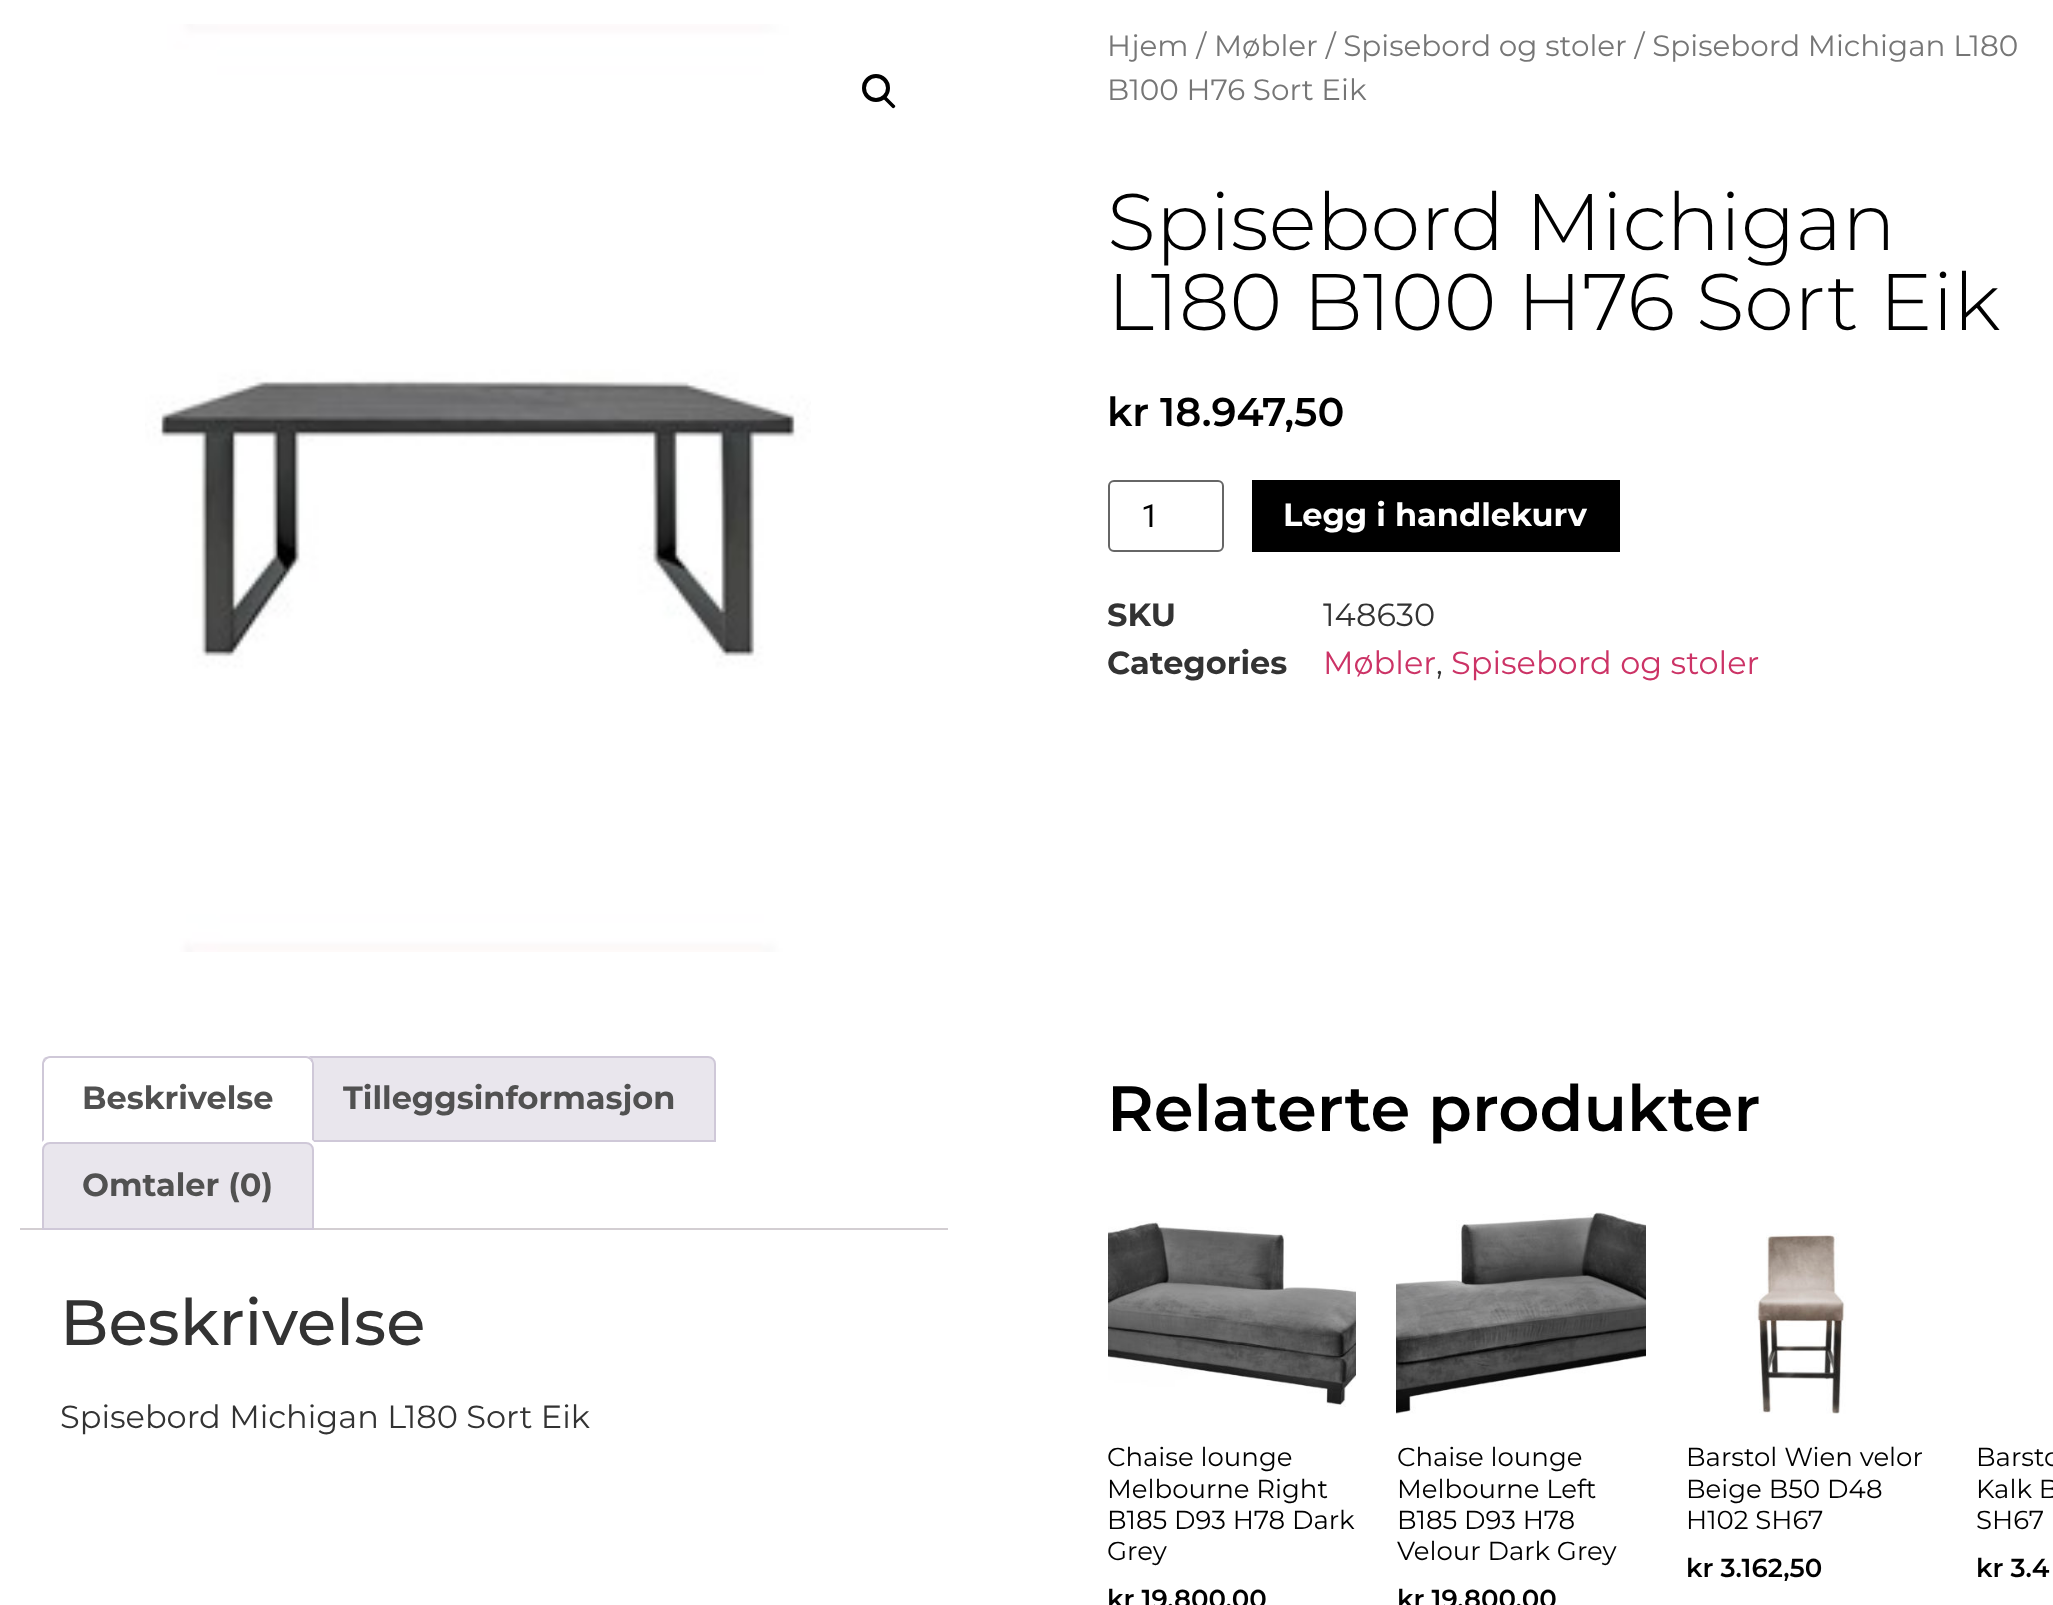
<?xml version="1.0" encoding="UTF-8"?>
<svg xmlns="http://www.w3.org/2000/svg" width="2053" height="1605">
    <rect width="100%" height="100%" fill="#FFFFFF"/>
    <image x="145" y="24" width="666" height="928" href="img_01.png"/>
    <circle cx="876" cy="88" r="12" fill="none" stroke="#000000" stroke-width="4"/>
    <path d="M 883.5 96.5 C 884 95.5 885.5 95.5 886 96.5 L 894.5 105 C 895.5 105.5 895.5 107 894.5 107.5 C 894 108.5 892.5 108.5 892 107.5 L 883.5 99 C 882.5 98.5 882.5 97 883.5 96.5 Z" fill="#000000"/>
    <text font-family="Montserrat" font-size="29.45" fill="#767676">
        <tspan x="1107" y="56">Hjem / Møbler / Spisebord og stoler / Spisebord Michigan L180</tspan>
        <tspan x="1107" y="100">B100 H76 Sort Eik</tspan>
    </text>
    <text font-family="Montserrat" font-size="80" font-weight="300" fill="#000000">
        <tspan x="1107" y="250">Spisebord Michigan</tspan>
        <tspan x="1107" y="330">L180 B100 H76 Sort Eik</tspan>
    </text>
    <text x="1107" y="426" font-family="Montserrat" font-size="40" font-weight="600" fill="#000000">kr 18.947,50</text>
    <rect x="1109" y="481" width="114" height="70" rx="5" fill="none" stroke="#666666" stroke-width="2"/>
    <text x="1141" y="527" font-family="Roboto" font-size="32" fill="#000000">1</text>
    <rect x="1252" y="480" width="368" height="72" fill="#000000"/>
    <text x="1283" y="526" font-family="Montserrat" font-size="32" font-weight="700" fill="#FFFFFF">Legg i handlekurv</text>
    <text x="1107" y="626" font-family="Montserrat" font-size="32" font-weight="700" fill="#333333">SKU</text>
    <text x="1323" y="626" font-family="Montserrat" font-size="32" fill="#333333">148630</text>
    <text x="1107" y="674" font-family="Montserrat" font-size="32" font-weight="700" fill="#333333">Categories</text>
    <text x="1323" y="674" font-family="Montserrat" font-size="32" fill="#CC3366">Møbler</text>
    <text x="1436" y="674" font-family="Montserrat" font-size="32" fill="#333333">,</text>
    <text x="1451" y="674" font-family="Montserrat" font-size="32" fill="#CC3366">Spisebord og stoler</text>
    <path d="M 310 1057 H 708 C 712 1057 715 1060 715 1064 V 1141 H 303 V 1064 C 303 1060 306 1057 310 1057 Z" fill="#E9E6ED" stroke="#CFC8D8" stroke-width="2"/>
    <path d="M 50 1056 H 306 C 310.5 1056 314 1059.5 314 1064 V 1142 H 42 V 1064 C 42 1059.5 45.5 1056 50 1056 Z" fill="#FFFFFF"/>
    <path d="M 50 1056 C 48 1056 46 1057 44 1058 L 46 1060 C 47 1059 48 1058 50 1058 H 306 C 308 1058 309 1059 310 1060 L 312 1058 C 310 1057 308 1056 306 1056 Z" fill="#CFC8D8"/>
    <path d="M 314 1142 V 1064 C 314 1062 313 1060 312 1058 L 310 1060 L 312 1063 V 1140 Z" fill="#CFC8D8"/>
    <path d="M 314 1142 L 312 1140 H 44 L 42 1142 Z" fill="#FFFFFF"/>
    <path d="M 42 1142 L 44 1140 V 1063 L 46 1060 L 44 1058 C 43 1060 42 1062 42 1064 Z" fill="#CFC8D8"/>
    <text x="82" y="1109" font-family="Montserrat" font-size="32" font-weight="700" fill="#515151">Beskrivelse</text>
    <text x="343" y="1109" font-family="Montserrat" font-size="32" font-weight="700" fill="#515151">Tilleggsinformasjon</text>
    <rect x="20" y="1228" width="928" height="2" fill="#D3CED2"/>
    <path d="M 50 1143 H 306 C 310 1143 313 1146 313 1150 V 1229 H 43 V 1150 C 43 1146 46 1143 50 1143 Z" fill="#E9E6ED" stroke="#CFC8D8" stroke-width="2"/>
    <text x="82" y="1196" font-family="Montserrat" font-size="32" font-weight="700" fill="#515151">Omtaler (0)</text>
    <text x="60" y="1345" font-family="Montserrat" font-size="64" font-weight="500" fill="#333333">Beskrivelse</text>
    <text x="60" y="1428" font-family="Montserrat" font-size="32" fill="#333333">Spisebord Michigan L180 Sort Eik</text>
    <text x="1107" y="1131" font-family="Montserrat" font-size="64" font-weight="600" fill="#000000">Relaterte produkter</text>
    <image x="1108" y="1221" width="248" height="186" href="img_02.png"/>
    <text font-family="Montserrat" font-size="26" fill="#000000">
        <tspan x="1107" y="1466">Chaise lounge</tspan>
        <tspan x="1107" y="1498">Melbourne Right</tspan>
        <tspan x="1107" y="1529">B185 D93 H78 Dark</tspan>
        <tspan x="1107" y="1560">Grey</tspan>
    </text>
    <text x="1107" y="1608" font-family="Montserrat" font-size="26" font-weight="600" fill="#000000">kr 19.800,00</text>
    <image x="1396" y="1212" width="250" height="202" href="img_03.png"/>
    <text font-family="Montserrat" font-size="26" fill="#000000">
        <tspan x="1397" y="1466">Chaise lounge</tspan>
        <tspan x="1397" y="1498">Melbourne Left</tspan>
        <tspan x="1397" y="1529">B185 D93 H78</tspan>
        <tspan x="1397" y="1560">Velour Dark Grey</tspan>
    </text>
    <text x="1397" y="1608" font-family="Montserrat" font-size="26" font-weight="600" fill="#000000">kr 19.800,00</text>
    <image x="1754" y="1233" width="92" height="181" href="img_04.png"/>
    <text font-family="Montserrat" font-size="26" fill="#000000">
        <tspan x="1686" y="1466">Barstol Wien velor</tspan>
        <tspan x="1686" y="1498">Beige B50 D48</tspan>
        <tspan x="1686" y="1529">H102 SH67</tspan>
    </text>
    <text x="1686" y="1577" font-family="Montserrat" font-size="26" font-weight="600" fill="#000000">kr 3.162,50</text>
    <text font-family="Montserrat" font-size="26" fill="#000000">
        <tspan x="1976" y="1466">Barsto</tspan>
        <tspan x="1976" y="1498">Kalk B</tspan>
        <tspan x="1976" y="1529">SH67</tspan>
    </text>
    <text x="1976" y="1577" font-family="Montserrat" font-size="26" font-weight="600" fill="#000000">kr 3.4</text>
</svg>
